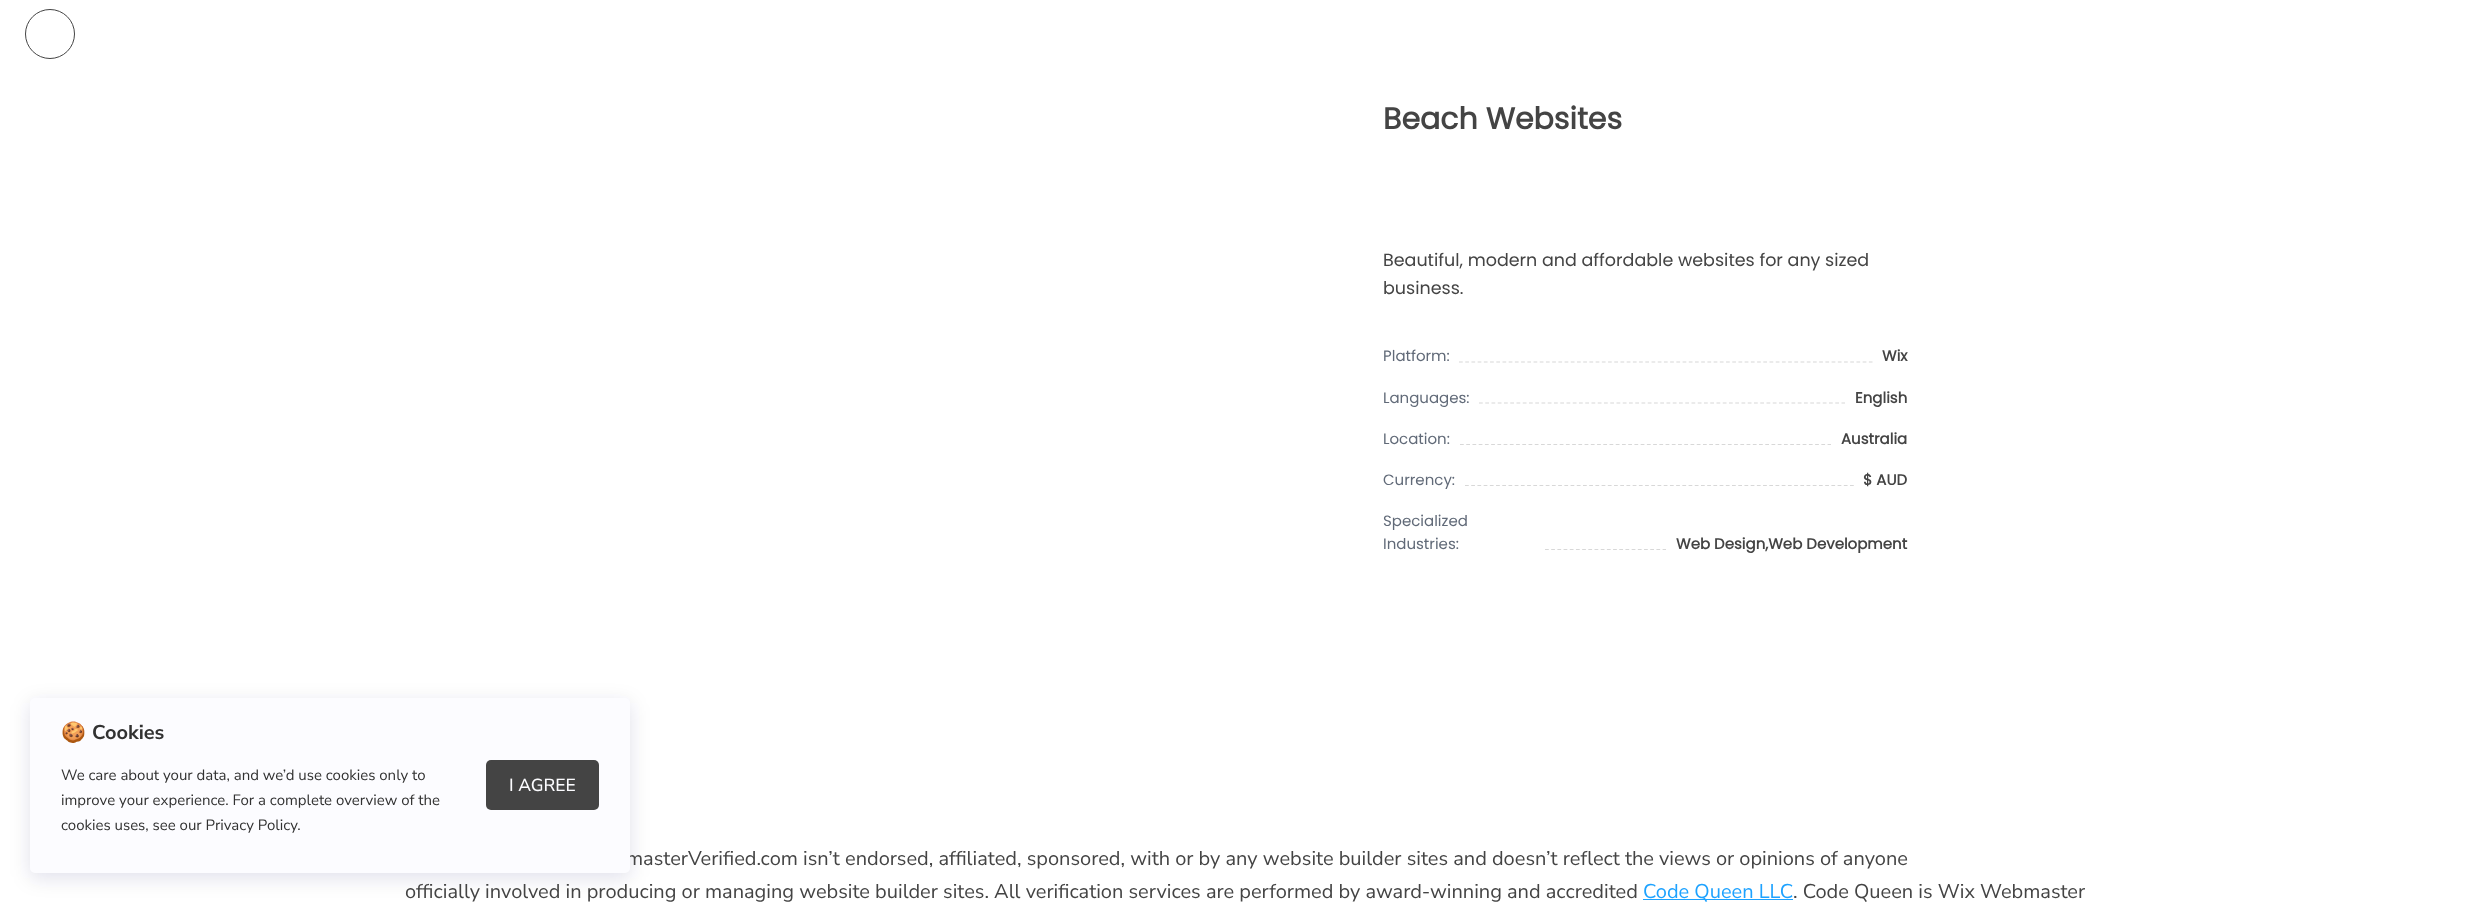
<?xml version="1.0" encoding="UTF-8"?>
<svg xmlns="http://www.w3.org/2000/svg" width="2489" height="910">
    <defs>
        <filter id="blur1" x="-50%" y="-200%" width="200%" height="500%"><feGaussianBlur stdDeviation="10"/></filter>
    </defs>
    <rect width="100%" height="100%" fill="#FFFFFF"/>
    <circle cx="50" cy="34" r="24.5" fill="none" stroke="#444444"/>
    <text x="1383" y="129" font-family="Poppins" font-size="30" font-weight="700" fill="#444444">Beach Websites</text>
    <text font-family="Poppins" font-size="17.5" fill="#444444">
        <tspan x="1383" y="266">Beautiful, modern and affordable websites for any sized</tspan>
        <tspan x="1383" y="294">business.</tspan>
    </text>
    <text x="1383" y="361" font-family="Poppins" font-size="15" fill="#616A78">Platform:</text>
    <text x="1882" y="361" font-family="Poppins" font-size="15" font-weight="700" fill="#444444">Wix</text>
    <path d="M 1459 362 H 1872.5" fill="none" stroke="#D8D8D8" stroke-width="1.2" stroke-dasharray="3.75 2.46"/>
    <text x="1383" y="403" font-family="Poppins" font-size="15" fill="#616A78">Languages:</text>
    <path d="M 1479 403 H 1845" fill="none" stroke="#D8D8D8" stroke-width="1.2" stroke-dasharray="3.75 2.5"/>
    <text x="1855" y="403" font-family="Poppins" font-size="15" font-weight="700" fill="#444444">English</text>
    <text x="1383" y="444" font-family="Poppins" font-size="15" fill="#616A78">Location:</text>
    <path d="M 1460 444.5 H 1831" fill="none" stroke="#D8D8D8" stroke-width="1.2" stroke-dasharray="3.75 2.48"/>
    <text x="1841" y="444" font-family="Poppins" font-size="15" font-weight="700" fill="#444444">Australia</text>
    <text x="1383" y="485" font-family="Poppins" font-size="15" fill="#616A78">Currency:</text>
    <path d="M 1465 485.5 H 1854" fill="none" stroke="#D8D8D8" stroke-width="1.2" stroke-dasharray="3.75 2.46"/>
    <text x="1863" y="485" font-family="Poppins" font-size="15" font-weight="700" fill="#444444">$ AUD</text>
    <text font-family="Poppins" font-size="15" fill="#616A78">
        <tspan x="1383" y="526">Specialized</tspan>
        <tspan x="1383" y="549">Industries:</tspan>
    </text>
    <path d="M 1545 549.5 H 1666" fill="none" stroke="#D8D8D8" stroke-width="1.2" stroke-dasharray="3.75 2.44"/>
    <text x="1676" y="549" font-family="Poppins" font-size="15" font-weight="700" fill="#444444">Web Design,Web Development</text>
    <rect x="30" y="703" width="600" height="175" rx="5" fill="#0A235E" fill-opacity="0.12" filter="url(#blur1)"/>
    <text x="626" y="865" font-family="Nunito Sans" font-size="20" fill="#444444">masterVerified.com isn’t endorsed, affiliated, sponsored, with or by any website builder sites and doesn’t reflect the views or opinions of anyone</text>
    <rect x="30" y="698" width="600" height="175" rx="5" fill="#FCFCFF"/>
    <text x="61" y="739" font-family="Noto Color Emoji" font-size="20" font-weight="700" fill="#323232">🍪</text>
    <text x="92" y="739" font-family="Nunito Sans" font-size="20" font-weight="700" fill="#323232">Cookies</text>
    <text font-family="Nunito Sans" font-size="15" fill="#323232">
        <tspan x="61" y="780">We care about your data, and we’d use cookies only to</tspan>
        <tspan x="61" y="805">improve your experience. For a complete overview of the</tspan>
        <tspan x="61" y="830">cookies uses, see our Privacy Policy.</tspan>
    </text>
    <rect x="486" y="760" width="113" height="50" rx="5" fill="#444444"/>
    <text x="509" y="791" font-family="Nunito Sans" font-size="17.5" font-weight="500" fill="#FCFCFF">I AGREE</text>
    <text x="405" y="898" font-family="Nunito Sans" font-size="20" fill="#444444">officially involved in producing or managing website builder sites. All verification services are performed by award-winning and accredited</text>
    <rect x="1643" y="899" width="150" height="1" fill="#1DA2FF"/>
    <text x="1643" y="898" font-family="Nunito Sans" font-size="20" fill="#1DA2FF">Code Queen LLC</text>
    <text x="1793" y="898" font-family="Nunito Sans" font-size="20" fill="#444444">. Code Queen is Wix Webmaster</text>
</svg>
